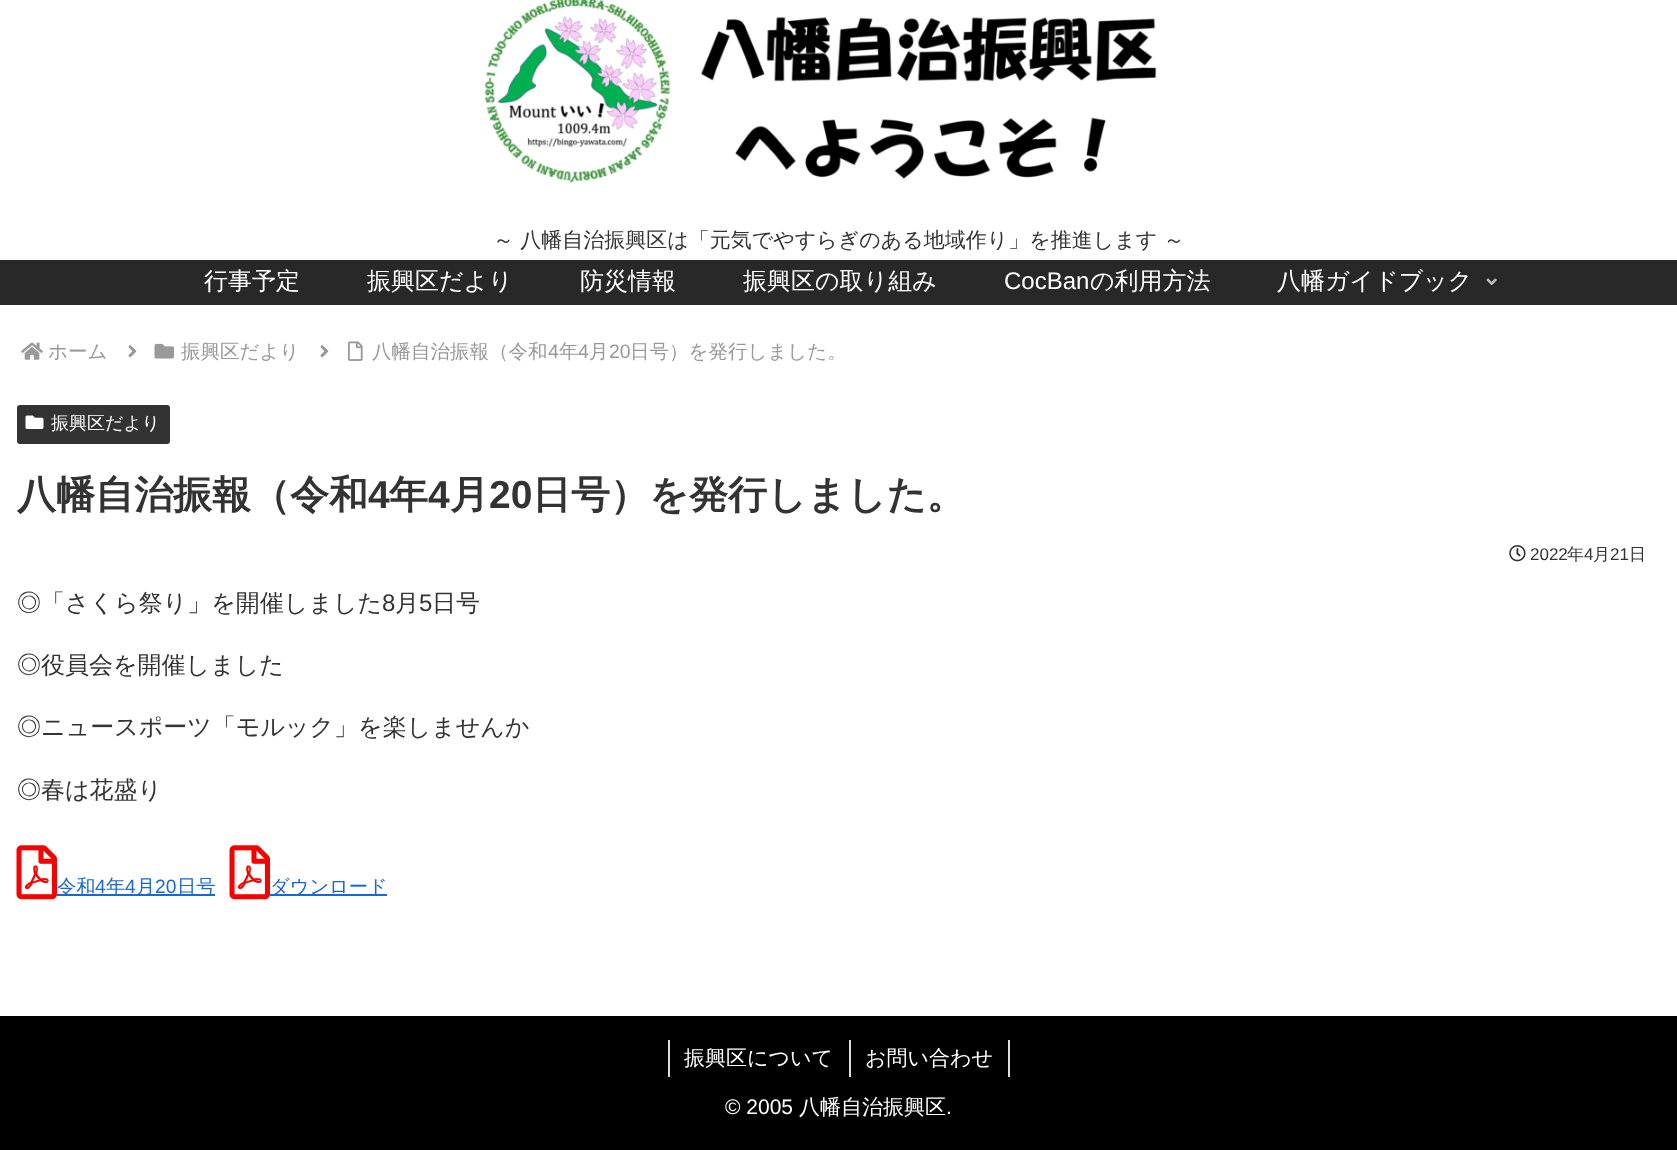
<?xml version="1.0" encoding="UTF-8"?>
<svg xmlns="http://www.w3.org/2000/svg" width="1677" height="1150">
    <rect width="100%" height="100%" fill="#FFFFFF"/>
    <image x="484" y="0" width="673" height="183" href="img_01.png"/>
    <text x="493" y="247" font-family="WenQuanYi Zen Hei" font-size="21" font-weight="500" fill="#333333">～ 八幡自治振興区は「元気でやすらぎのある地域作り」を推進します ～</text>
    <rect x="0" y="260" width="1677" height="45" fill="#282828"/>
    <text x="204" y="289" font-family="WenQuanYi Zen Hei" font-size="24" font-weight="500" fill="#FFFFFF">行事予定</text>
    <text x="367" y="289" font-family="WenQuanYi Zen Hei" font-size="24" font-weight="500" fill="#FFFFFF">振興区だより</text>
    <text x="580" y="289" font-family="WenQuanYi Zen Hei" font-size="24" font-weight="500" fill="#FFFFFF">防災情報</text>
    <text x="743" y="289" font-family="WenQuanYi Zen Hei" font-size="24" font-weight="500" fill="#FFFFFF">振興区の取り組み</text>
    <text x="1004" y="289" font-family="Liberation Sans" font-size="24" fill="#FFFFFF">CocBan</text>
    <text x="1090" y="289" font-family="WenQuanYi Zen Hei" font-size="24" font-weight="500" fill="#FFFFFF">の利用方法</text>
    <text x="1277" y="289" font-family="WenQuanYi Zen Hei" font-size="24" font-weight="500" fill="#FFFFFF">八幡ガイドブック</text>
    <image x="1486" y="278" width="11" height="8" href="img_02.png"/>
    <image x="21" y="342" width="22" height="18" href="img_03.png"/>
    <text x="48" y="358" font-family="WenQuanYi Zen Hei" font-size="19.5" font-weight="500" fill="#999999">ホーム</text>
    <image x="128" y="345" width="9" height="13" href="img_04.png"/>
    <image x="154" y="343" width="20" height="16" href="img_05.png"/>
    <text x="181" y="358" font-family="WenQuanYi Zen Hei" font-size="19.5" font-weight="500" fill="#999999">振興区だより</text>
    <image x="320" y="345" width="9" height="13" href="img_04.png"/>
    <image x="348" y="341" width="15" height="20" href="img_06.png"/>
    <text x="372" y="358" font-family="WenQuanYi Zen Hei" font-size="19.5" font-weight="500" fill="#999999">八幡自治振報（令和</text>
    <text x="548" y="358" font-family="Liberation Sans" font-size="19.5" fill="#999999">4</text>
    <text x="559" y="358" font-family="WenQuanYi Zen Hei" font-size="19.5" font-weight="500" fill="#999999">年</text>
    <text x="578" y="358" font-family="Liberation Sans" font-size="19.5" fill="#999999">4</text>
    <text x="589" y="358" font-family="WenQuanYi Zen Hei" font-size="19.5" font-weight="500" fill="#999999">月</text>
    <text x="609" y="358" font-family="Liberation Sans" font-size="19.5" fill="#999999">20</text>
    <text x="630" y="358" font-family="WenQuanYi Zen Hei" font-size="19.5" font-weight="500" fill="#999999">日号）を発行しました。</text>
    <rect x="17" y="405" width="153" height="39" rx="3" fill="#333333"/>
    <image x="25" y="415" width="19" height="14" href="img_07.png"/>
    <text x="51" y="429" font-family="WenQuanYi Zen Hei" font-size="18" font-weight="500" fill="#FFFFFF">振興区だより</text>
    <text x="17" y="508" font-family="WenQuanYi Zen Hei" font-size="39" font-weight="700" fill="#333333">八幡自治振報（令和</text>
    <text x="368" y="508" font-family="Liberation Sans" font-size="39" font-weight="700" fill="#333333">4</text>
    <text x="389" y="508" font-family="WenQuanYi Zen Hei" font-size="39" font-weight="700" fill="#333333">年</text>
    <text x="428" y="508" font-family="Liberation Sans" font-size="39" font-weight="700" fill="#333333">4</text>
    <text x="450" y="508" font-family="WenQuanYi Zen Hei" font-size="39" font-weight="700" fill="#333333">月</text>
    <text x="489" y="508" font-family="Liberation Sans" font-size="39" font-weight="700" fill="#333333">20</text>
    <text x="532" y="508" font-family="WenQuanYi Zen Hei" font-size="39" font-weight="700" fill="#333333">日号）を発行しました。</text>
    <image x="1509" y="545" width="17" height="17" href="img_08.png"/>
    <text x="1530" y="560" font-family="Liberation Sans" font-size="17" fill="#333333">2022</text>
    <text x="1567" y="560" font-family="WenQuanYi Zen Hei" font-size="17" font-weight="500" fill="#333333">年</text>
    <text x="1584" y="560" font-family="Liberation Sans" font-size="17" fill="#333333">4</text>
    <text x="1593" y="560" font-family="WenQuanYi Zen Hei" font-size="17" font-weight="500" fill="#333333">月</text>
    <text x="1610" y="560" font-family="Liberation Sans" font-size="17" fill="#333333">21</text>
    <text x="1629" y="560" font-family="WenQuanYi Zen Hei" font-size="17" font-weight="500" fill="#333333">日</text>
    <text x="17" y="611" font-family="WenQuanYi Zen Hei" font-size="24" font-weight="500" fill="#333333">◎「さくら祭り」を開催しました</text>
    <text x="382" y="611" font-family="Liberation Sans" font-size="24" fill="#333333">8</text>
    <text x="395" y="611" font-family="WenQuanYi Zen Hei" font-size="24" font-weight="500" fill="#333333">月</text>
    <text x="419" y="611" font-family="Liberation Sans" font-size="24" fill="#333333">5</text>
    <text x="432" y="611" font-family="WenQuanYi Zen Hei" font-size="24" font-weight="500" fill="#333333">日号</text>
    <text x="17" y="673" font-family="WenQuanYi Zen Hei" font-size="24" font-weight="500" fill="#333333">◎役員会を開催しました</text>
    <text x="17" y="735" font-family="WenQuanYi Zen Hei" font-size="24" font-weight="500" fill="#333333">◎ニュースポーツ「モルック」を楽しませんか</text>
    <text x="17" y="798" font-family="WenQuanYi Zen Hei" font-size="24" font-weight="500" fill="#333333">◎春は花盛り</text>
    <image x="16" y="845" width="41" height="55" href="img_09.png"/>
    <rect x="57" y="894" width="158" height="2" fill="#1967D2"/>
    <text x="57" y="893" font-family="WenQuanYi Zen Hei" font-size="19.25" font-weight="500" fill="#1967D2">令和</text>
    <text x="95" y="893" font-family="Liberation Sans" font-size="19.25" fill="#1967D2">4</text>
    <text x="106" y="893" font-family="WenQuanYi Zen Hei" font-size="19.25" font-weight="500" fill="#1967D2">年</text>
    <text x="125" y="893" font-family="Liberation Sans" font-size="19.25" fill="#1967D2">4</text>
    <text x="136" y="893" font-family="WenQuanYi Zen Hei" font-size="19.25" font-weight="500" fill="#1967D2">月</text>
    <text x="155" y="893" font-family="Liberation Sans" font-size="19.25" fill="#1967D2">20</text>
    <text x="177" y="893" font-family="WenQuanYi Zen Hei" font-size="19.25" font-weight="500" fill="#1967D2">日号</text>
    <image x="229" y="845" width="41" height="55" href="img_09.png"/>
    <rect x="270" y="894" width="117" height="2" fill="#1967D2"/>
    <text x="270" y="893" font-family="WenQuanYi Zen Hei" font-size="19.25" font-weight="500" fill="#1967D2">ダウンロード</text>
    <rect x="0" y="1016" width="1677" height="134" fill="#000000"/>
    <rect x="668" y="1040" width="2" height="37" fill="#DDDDDD"/>
    <text x="684" y="1065" font-family="WenQuanYi Zen Hei" font-size="21" font-weight="500" fill="#FFFFFF">振興区について</text>
    <rect x="1008" y="1040" width="2" height="37" fill="#DDDDDD"/>
    <rect x="849" y="1040" width="2" height="37" fill="#DDDDDD"/>
    <text x="865" y="1065" font-family="WenQuanYi Zen Hei" font-size="21" font-weight="500" fill="#FFFFFF">お問い合わせ</text>
    <text x="725" y="1114" font-family="Liberation Sans" font-size="21" fill="#FFFFFF">© 2005</text>
    <text x="799" y="1114" font-family="WenQuanYi Zen Hei" font-size="21" font-weight="500" fill="#FFFFFF">八幡自治振興区</text>
    <text x="946" y="1114" font-family="Liberation Sans" font-size="21" fill="#FFFFFF">.</text>
</svg>
